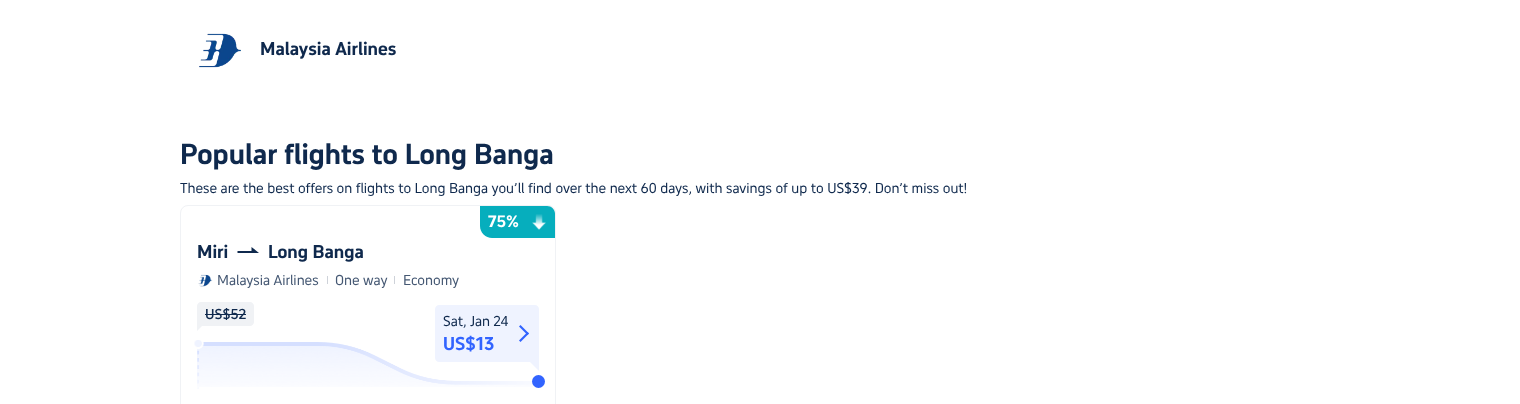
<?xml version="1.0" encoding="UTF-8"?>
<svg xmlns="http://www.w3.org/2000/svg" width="1520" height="404">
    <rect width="100%" height="100%" fill="#FFFFFF"/>
    <image x="199" y="33" width="42" height="35" href="img_01.png"/>
    <text x="260" y="55" font-family="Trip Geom" font-size="18" font-weight="700" fill="#0F294D">Malaysia Airlines</text>
    <text x="180" y="164" font-family="Trip Geom" font-size="28" font-weight="700" fill="#0F294D">Popular flights to Long Banga</text>
    <text x="180" y="193" font-family="Trip Geom" font-size="14" fill="#0F294D">These are the best offers on flights to Long Banga you’ll find over the next 60 days, with savings of up to US$39. Don’t miss out!</text>
    <rect x="180.5" y="205.5" width="375" height="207" rx="7.5" fill="none" stroke="#F0F2F5"/>
    <path d="M 480 206 H 547 C 551.5 206 555 209.5 555 214 V 238 H 492 C 485.5 238 480 232.5 480 226 Z" fill="#06AEBD"/>
    <text x="488" y="227" font-family="Trip Geom" font-size="16" font-weight="700" fill="#FFFFFF">75%</text>
    <image x="532" y="214" width="14" height="16" href="img_02.png"/>
    <text x="197" y="258" font-family="Trip Geom" font-size="18" font-weight="700" fill="#0F294D">Miri</text>
    <path d="M 251.5 247 L 259 253 H 237.5 V 251 H 251.5 Z" fill="#0F294D"/>
    <text x="268" y="258" font-family="Trip Geom" font-size="18" font-weight="700" fill="#0F294D">Long Banga</text>
    <image x="198" y="274" width="15" height="13" href="img_03.png"/>
    <text x="217" y="285" font-family="Trip Geom" font-size="14" fill="#455873">Malaysia Airlines</text>
    <rect x="327" y="276" width="1" height="8" fill="#CED2D9"/>
    <text x="335" y="285" font-family="Trip Geom" font-size="14" fill="#455873">One way</text>
    <rect x="394" y="276" width="1" height="8" fill="#CED2D9"/>
    <text x="403" y="285" font-family="Trip Geom" font-size="14" fill="#455873">Economy</text>
    <image x="197" y="342" width="336" height="45" href="img_04.png"/>
    <path d="M 201 302 H 250 C 252 302 254 304 254 306 V 322 C 254 324 252 326 250 326 H 197 V 306 C 197 304 199 302 201 302 Z" fill="#F0F2F5"/>
    <text x="205" y="319" font-family="Trip Geom" font-size="14" font-weight="500" fill="#0F294D">US$52</text>
    <rect x="205" y="314" width="41" height="1" fill="#0F294D"/>
    <path d="M 197 331 V 326 H 202 Z" fill="#F0F2F5"/>
    <path d="M 439 305 H 535 C 537 305 539 307 539 309 V 362 H 439 C 437 362 435 360 435 358 V 309 C 435 307 437 305 439 305 Z" fill="#EFF3FF"/>
    <text x="443" y="326" font-family="Trip Geom" font-size="14" fill="#0F294D">Sat, Jan 24</text>
    <text x="443" y="350" font-family="Trip Geom" font-size="18" font-weight="700" fill="#3264FF">US$13</text>
    <path d="M 519 326.5 L 520.5 325 L 529 333.5 L 527.5 335 Z" fill="#3264FF"/>
    <path d="M 519 340.5 L 527.5 332 L 529 333.5 L 520.5 342 Z" fill="#3264FF"/>
    <path d="M 539 362 V 371 L 530 362 Z" fill="#EFF3FF"/>
    <image x="194" y="340" width="10" height="49" href="img_05.png"/>
    <circle cx="538.5" cy="381.5" r="6.5" fill="#3264FF"/>
</svg>
